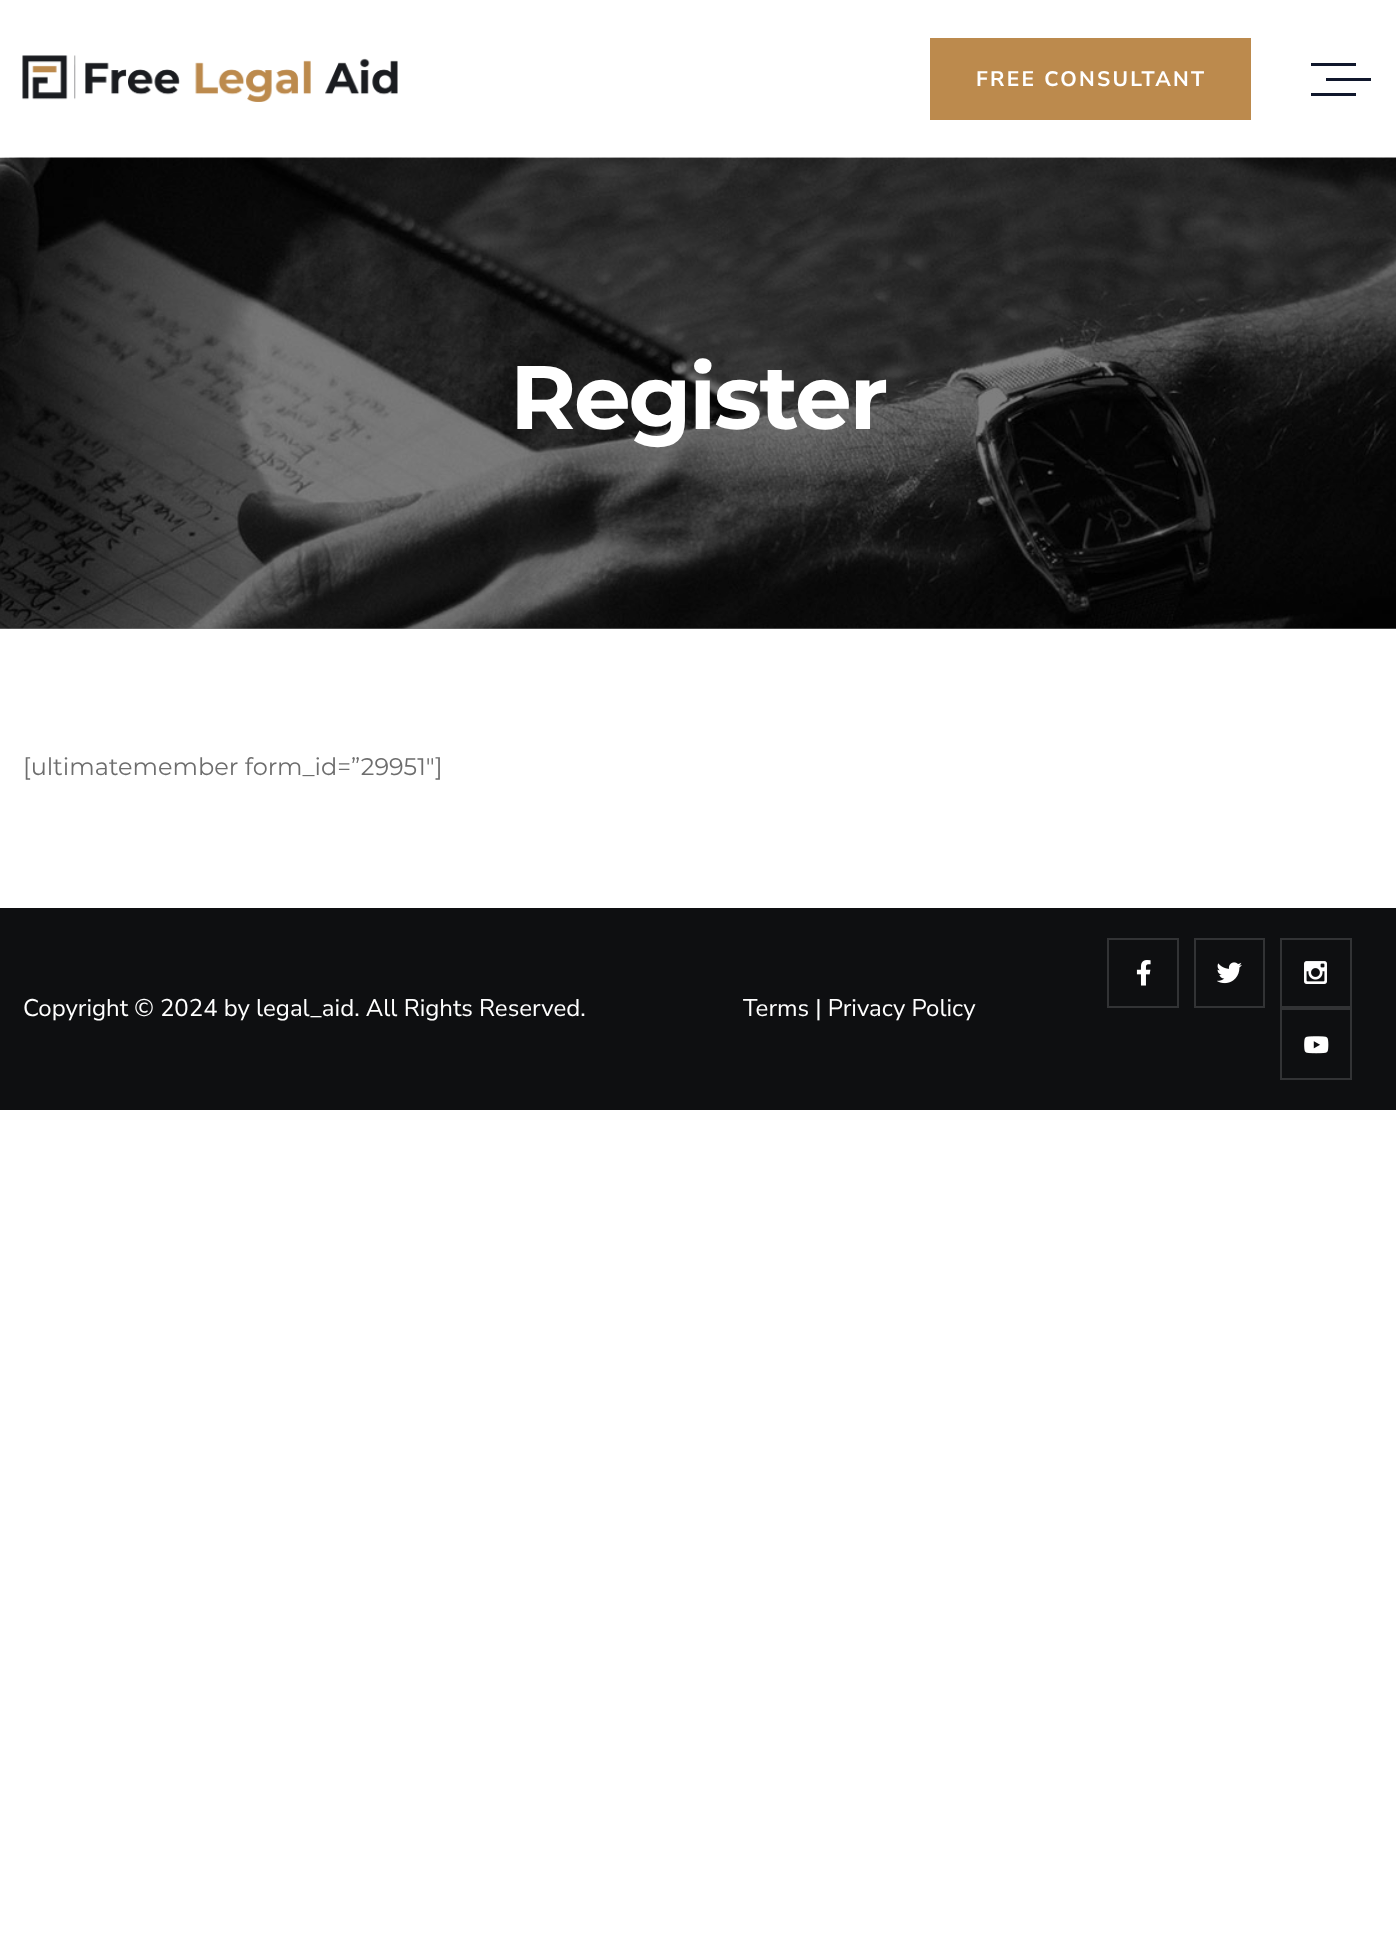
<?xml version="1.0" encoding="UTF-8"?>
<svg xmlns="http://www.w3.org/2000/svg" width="1396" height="1940">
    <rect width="100%" height="100%" fill="#FFFFFF"/>
    <rect x="0" y="628" width="1396" height="1" fill="#808080"/>
    <image x="22" y="55" width="376" height="47" href="img_01.png"/>
    <rect x="930" y="38" width="321" height="82" fill="#BC8A4D"/>
    <text x="976" y="86" font-family="Nunito Sans" font-size="21" font-weight="700" letter-spacing="2.25" fill="#FFFFFF">FREE CONSULTANT</text>
    <rect x="1311" y="63" width="45" height="3" fill="#10172C"/>
    <rect x="1326" y="78" width="45" height="3" fill="#10172C"/>
    <rect x="1311" y="93" width="45" height="3" fill="#10172C"/>
    <image x="0" y="157" width="1396" height="472" href="img_02.png"/>
    <text x="510" y="429" font-family="Montserrat" font-size="90" font-weight="700" letter-spacing="-2.25" fill="#FFFFFF">Register</text>
    <text x="23" y="775" font-family="Montserrat" font-size="24" font-weight="100" fill="#6D6D6D">[ultimatemember form_id=”29951″]</text>
    <rect x="0" y="908" width="1396" height="202" fill="#0E0F11"/>
    <text x="23" y="1016" font-family="Nunito Sans" font-size="24" fill="#FFFFFF">Copyright © 2024 by legal_aid. All Rights Reserved.</text>
    <text x="743" y="1016" font-family="Nunito Sans" font-size="24" fill="#FFFFFF">Terms | Privacy Policy</text>
    <rect x="1108" y="939" width="70" height="68" fill="none" stroke="#323335" stroke-width="2"/>
    <image x="1136" y="960" width="15" height="26" href="img_03.png"/>
    <rect x="1195" y="939" width="69" height="68" fill="none" stroke="#323335" stroke-width="2"/>
    <image x="1217" y="962" width="25" height="22" href="img_04.png"/>
    <rect x="1281" y="939" width="70" height="68" fill="none" stroke="#323335" stroke-width="2"/>
    <image x="1304" y="961" width="23" height="23" href="img_05.png"/>
    <rect x="1281" y="1009" width="70" height="70" fill="none" stroke="#323335" stroke-width="2"/>
    <image x="1304" y="1036" width="25" height="18" href="img_06.png"/>
</svg>
